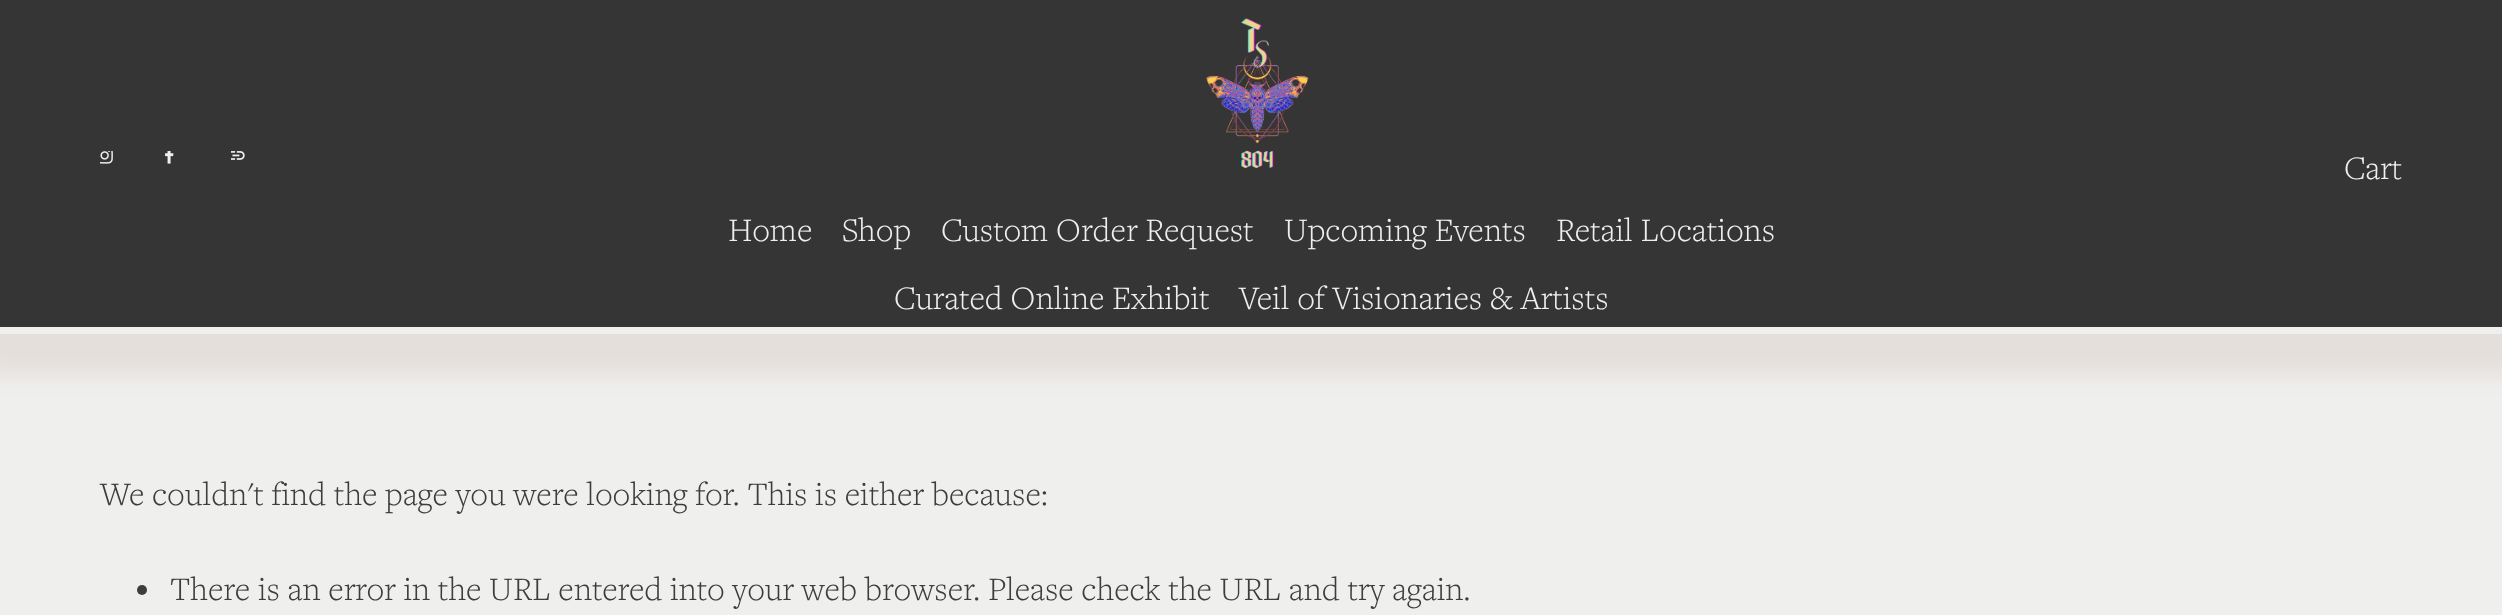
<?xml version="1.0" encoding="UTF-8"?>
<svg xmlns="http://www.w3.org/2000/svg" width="2502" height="615">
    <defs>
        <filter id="blur1" x="-50%" y="-200%" width="200%" height="500%"><feGaussianBlur stdDeviation="10.5"/></filter>
    </defs>
    <rect width="100%" height="100%" fill="#EFEFEE"/>
    <rect x="-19" y="2" width="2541" height="373" fill="#E4DFDB" filter="url(#blur1)"/>
    <rect x="0" y="0" width="2502" height="327" fill="#353535"/>
    <image x="100" y="151" width="13" height="13" href="img_01.png"/>
    <image x="165" y="151" width="9" height="13" href="img_02.png"/>
    <image x="231" y="151" width="14" height="9" href="img_03.png"/>
    <text x="2344" y="179" font-family="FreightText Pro" font-size="34" font-weight="300" fill="#EFEFEE">Cart</text>
    <image x="1206" y="18" width="103" height="150" href="img_04.png"/>
    <text x="728" y="241" font-family="FreightText Pro" font-size="34" font-weight="300" fill="#EFEFEE">Home</text>
    <text x="842" y="241" font-family="FreightText Pro" font-size="34" font-weight="300" fill="#EFEFEE">Shop</text>
    <text x="941" y="241" font-family="FreightText Pro" font-size="34" font-weight="300" fill="#EFEFEE">Custom Order Request</text>
    <text x="1284" y="241" font-family="FreightText Pro" font-size="34" font-weight="300" fill="#EFEFEE">Upcoming Events</text>
    <text x="1556" y="241" font-family="FreightText Pro" font-size="34" font-weight="300" fill="#EFEFEE">Retail Locations</text>
    <text x="894" y="309" font-family="FreightText Pro" font-size="34" font-weight="300" fill="#EFEFEE">Curated Online Exhibit</text>
    <text x="1239" y="309" font-family="FreightText Pro" font-size="34" font-weight="300" fill="#EFEFEE">Veil of Visionaries &amp; Artists</text>
    <rect x="0" y="327" width="2502" height="7" fill="#EFEFEE"/>
    <text x="100" y="505" font-family="FreightText Pro" font-size="34" font-weight="300" fill="#3E3D3D">We couldn't find the page you were looking for. This is either because:</text>
    <circle cx="142" cy="590" r="5" fill="#3E3D3D"/>
    <text x="170" y="600" font-family="FreightText Pro" font-size="34" font-weight="300" fill="#3E3D3D">There is an error in the URL entered into your web browser. Please check the URL and try again.</text>
</svg>
